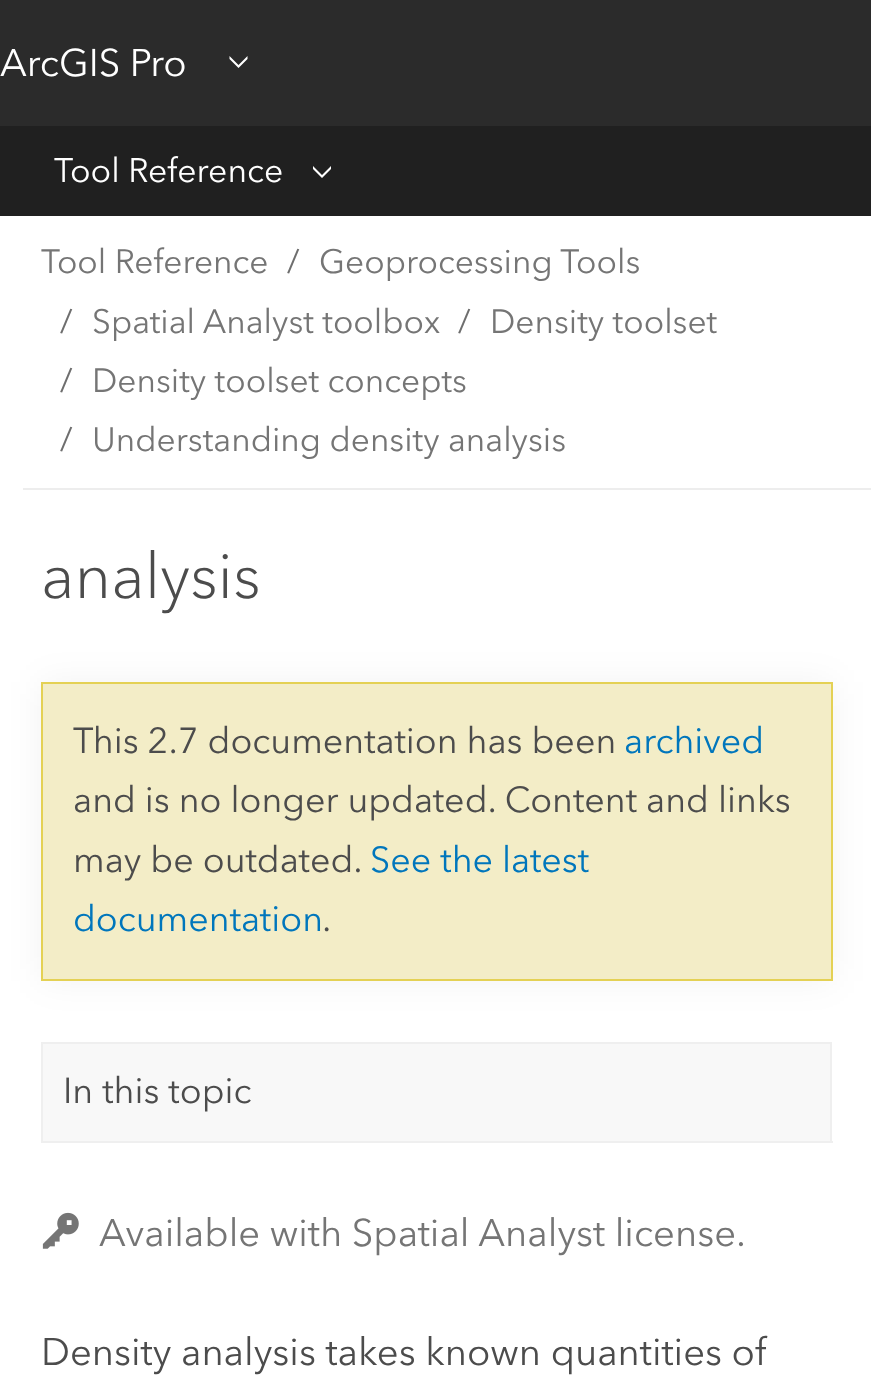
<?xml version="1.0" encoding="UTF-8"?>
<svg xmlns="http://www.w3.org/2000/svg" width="871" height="1375">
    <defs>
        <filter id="blur1" x="-50%" y="-200%" width="200%" height="500%"><feGaussianBlur stdDeviation="18"/></filter>
    </defs>
    <rect width="100%" height="100%" fill="#FFFFFF"/>
    <rect x="0" y="0" width="871" height="126" fill="#2B2B2B"/>
    <text x="0" y="76" font-family="Avenir Next" font-size="38.25" fill="#FFFFFF">ArcGIS Pro</text>
    <path d="M 238.5 68 L 229.5 59 V 56 L 238.5 65 L 247.5 56 V 59 Z" fill="#FFFFFF"/>
    <rect x="0" y="126" width="871" height="90" fill="#202020"/>
    <text x="54" y="182" font-family="Avenir Next" font-size="33.75" fill="#FFFFFF">Tool Reference</text>
    <path d="M 322 178 L 313 169 V 166 L 322 175 L 331 166 V 169 Z" fill="#FFFFFF"/>
    <rect x="23" y="488" width="848" height="2" fill="#EDEDED"/>
    <text x="41" y="273" font-family="Avenir Next" font-size="33.5" fill="#757575">Tool Reference</text>
    <text x="287" y="273" font-family="Avenir Next" font-size="33.5" fill="#6E6E6E">/</text>
    <text x="319" y="273" font-family="Avenir Next" font-size="33.5" fill="#757575">Geoprocessing Tools</text>
    <text x="60" y="333" font-family="Avenir Next" font-size="33.5" fill="#6E6E6E">/</text>
    <text x="92" y="333" font-family="Avenir Next" font-size="33.5" fill="#757575">Spatial Analyst toolbox</text>
    <text x="458" y="333" font-family="Avenir Next" font-size="33.5" fill="#6E6E6E">/</text>
    <text x="490" y="333" font-family="Avenir Next" font-size="33.5" fill="#757575">Density toolset</text>
    <text x="60" y="392" font-family="Avenir Next" font-size="33.5" fill="#6E6E6E">/</text>
    <text x="92" y="392" font-family="Avenir Next" font-size="33.5" fill="#757575">Density toolset concepts</text>
    <text x="60" y="451" font-family="Avenir Next" font-size="33.5" fill="#6E6E6E">/</text>
    <text x="92" y="451" font-family="Avenir Next" font-size="33.5" fill="#757575">Understanding density analysis</text>
    <text x="41" y="598" font-family="Avenir Next" font-size="63.5" font-weight="300" fill="#4C4C4C">analysis</text>
    <rect x="41" y="682" width="792" height="299" fill="#000000" fill-opacity="0.05" filter="url(#blur1)"/>
    <rect x="42" y="683" width="790" height="297" fill="#F3EDC7" stroke="#E4D154" stroke-width="2"/>
    <text x="73" y="753" font-family="Avenir Next" font-size="35.9" fill="#4C4C4C">This 2.7 documentation has been</text>
    <text x="624" y="753" font-family="Avenir Next" font-size="35.9" fill="#0076BC">archived</text>
    <text font-family="Avenir Next" font-size="35.9" fill="#4C4C4C">
        <tspan x="73" y="812">and is no longer updated. Content and links</tspan>
        <tspan x="73" y="872">may be outdated.</tspan>
    </text>
    <text x="370" y="872" font-family="Avenir Next" font-size="35.9" fill="#0076BC">See the latest</text>
    <text x="73" y="931" font-family="Avenir Next" font-size="35.9" fill="#0076BC">documentation</text>
    <text x="322" y="931" font-family="Avenir Next" font-size="35.9" fill="#4C4C4C">.</text>
    <rect x="830" y="1042" width="2" height="101" fill="#EFEFEF"/>
    <rect x="41" y="1141" width="792" height="2" fill="#EFEFEF"/>
    <rect x="41" y="1042" width="2" height="101" fill="#EFEFEF"/>
    <rect x="43" y="1044" width="787" height="97" fill="#F8F8F8"/>
    <rect x="43" y="1042" width="787" height="2" fill="#EFEFEF"/>
    <text x="63" y="1103" font-family="Avenir Next" font-size="35.9" fill="#4C4C4C">In this topic</text>
    <image x="42" y="1212" width="37" height="37" href="img_01.png"/>
    <text x="99" y="1246" font-family="Avenir Next" font-size="38.25" fill="#757575">Available with Spatial Analyst license.</text>
    <text x="41" y="1365" font-family="Avenir Next" font-size="38.25" fill="#4C4C4C">Density analysis takes known quantities of</text>
</svg>
